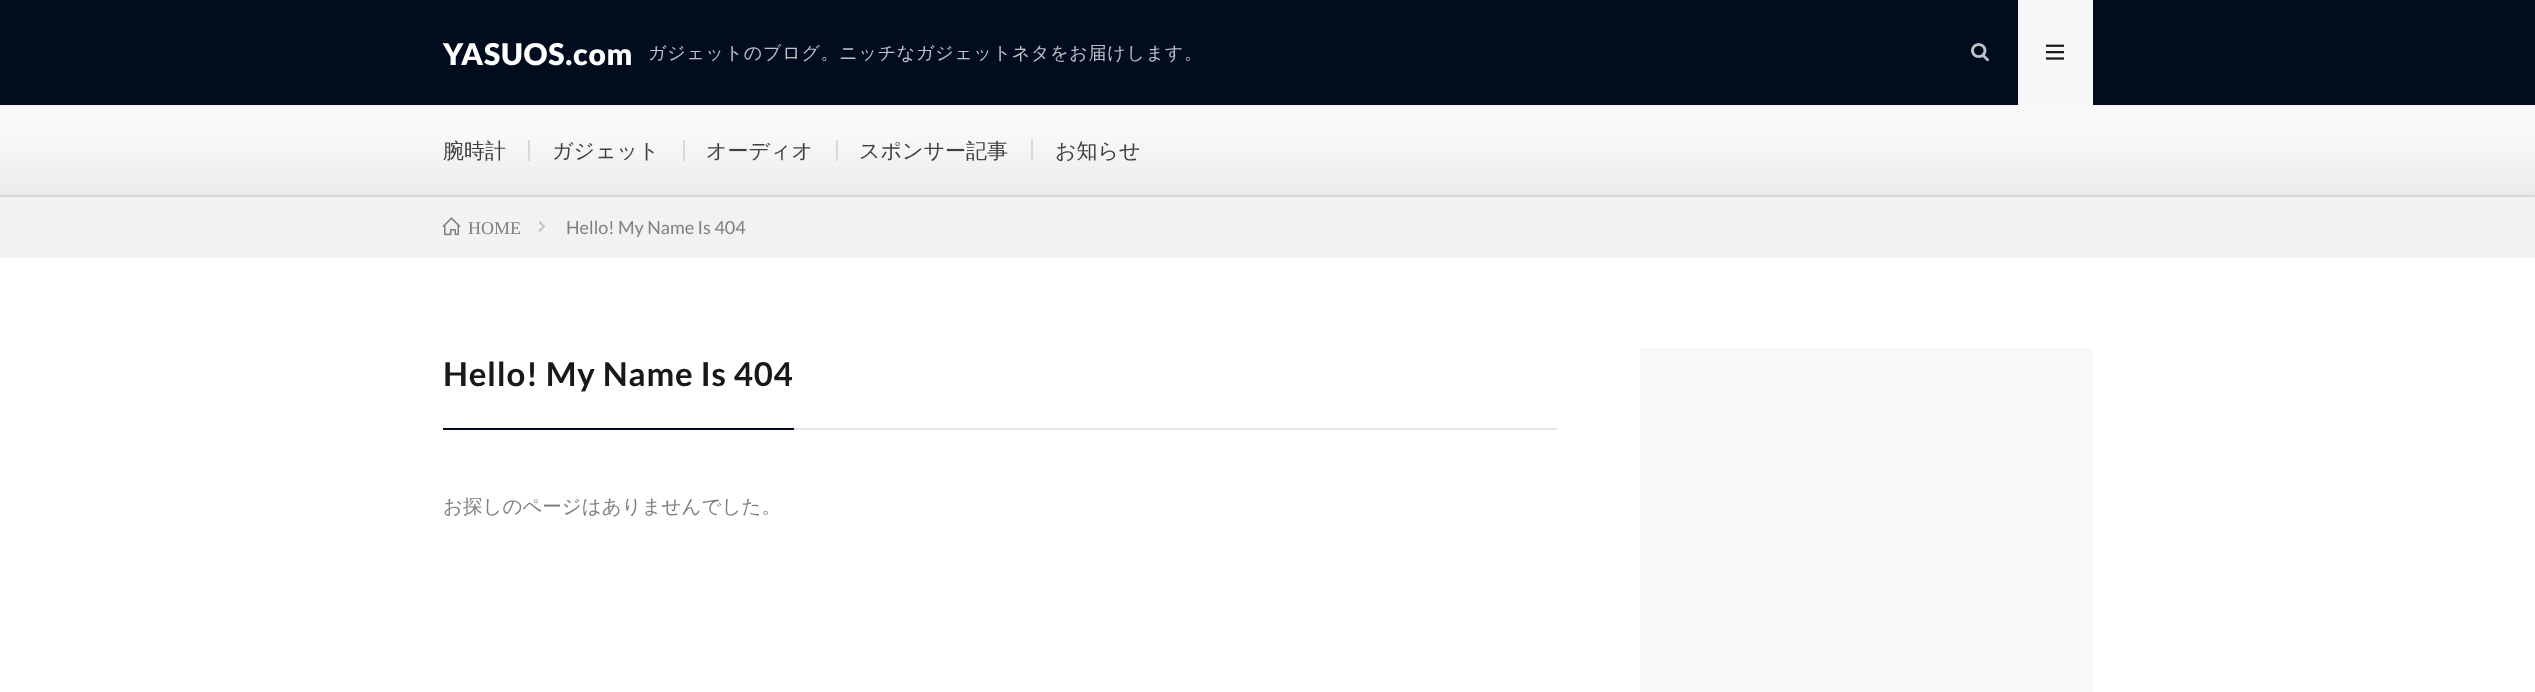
<?xml version="1.0" encoding="UTF-8"?>
<svg xmlns="http://www.w3.org/2000/svg" width="2535" height="692">
    <defs>
        <linearGradient id="g1" gradientUnits="userSpaceOnUse" x1="1268" y1="105" x2="1268" y2="195"><stop offset="0" stop-color="#F8F8F8"/><stop offset="0.35" stop-color="#F8F8F8"/><stop offset="1" stop-color="#EBEBEB"/></linearGradient>
    </defs>
    <rect width="100%" height="100%" fill="#FFFFFF"/>
    <rect x="0" y="0" width="2535" height="105" fill="#010C1E"/>
    <text x="443" y="65" font-family="Lato" font-size="30" font-weight="900" letter-spacing="0.75" fill="#FFFFFF">YASUOS.com</text>
    <text x="648" y="59" font-family="WenQuanYi Zen Hei" font-size="18" font-weight="500" letter-spacing="0.75" fill="#C0C2C7">ガジェットのブログ。ニッチなガジェットネタをお届けします。</text>
    <image x="1971" y="43" width="18" height="19" href="img_01.png"/>
    <rect x="2018" y="0" width="75" height="105" fill="#F7F7F7"/>
    <image x="2046" y="44" width="18" height="16" href="img_02.png"/>
    <rect x="0" y="195" width="2535" height="2" fill="#D8D8D8"/>
    <rect x="0" y="105" width="2535" height="90" fill="url(#g1)"/>
    <text x="443" y="158" font-family="WenQuanYi Zen Hei" font-size="21" font-weight="500" fill="#3F3F3F">腕時計</text>
    <rect x="528" y="140" width="2" height="21" fill="#D8D8D8"/>
    <text x="552" y="158" font-family="WenQuanYi Zen Hei" font-size="21" font-weight="500" fill="#3F3F3F">ガジェット</text>
    <rect x="683" y="140" width="2" height="21" fill="#D8D8D8"/>
    <text x="706" y="158" font-family="WenQuanYi Zen Hei" font-size="21" font-weight="500" fill="#3F3F3F">オーディオ</text>
    <rect x="836" y="140" width="2" height="21" fill="#D8D8D8"/>
    <text x="859" y="158" font-family="WenQuanYi Zen Hei" font-size="21" font-weight="500" fill="#3F3F3F">スポンサー記事</text>
    <rect x="1031" y="140" width="2" height="21" fill="#D8D8D8"/>
    <text x="1055" y="158" font-family="WenQuanYi Zen Hei" font-size="21" font-weight="500" fill="#3F3F3F">お知らせ</text>
    <rect x="0" y="197" width="2535" height="61" fill="#F2F2F2"/>
    <image x="442" y="217" width="19" height="19" href="img_03.png"/>
    <text x="468" y="234" font-family="Liberation Serif" font-size="18" fill="#7F7F7F">HOME</text>
    <path d="M 540 221 L 545 226.5 L 544 227.5 L 538.5 222.5 Z" fill="#BFBFBF"/>
    <path d="M 544 225.5 L 545 226.5 L 540 232 L 538.5 230.5 Z" fill="#BFBFBF"/>
    <text x="566" y="234" font-family="Lato" font-size="18" fill="#7F7F7F">Hello! My Name Is 404</text>
    <rect x="443" y="428" width="351" height="2" fill="#010C1E"/>
    <text x="443" y="386" font-family="Lato" font-size="33" font-weight="700" letter-spacing="0.75" fill="#191919">Hello! My Name Is 404</text>
    <rect x="794" y="428" width="763" height="2" fill="#E5E5E5"/>
    <text x="443" y="513" font-family="WenQuanYi Zen Hei" font-size="19.5" font-weight="500" fill="#7F7F7F">お探しのページはありませんでした。</text>
    <rect x="1640" y="348" width="453" height="344" fill="#F8F8F8"/>
</svg>
